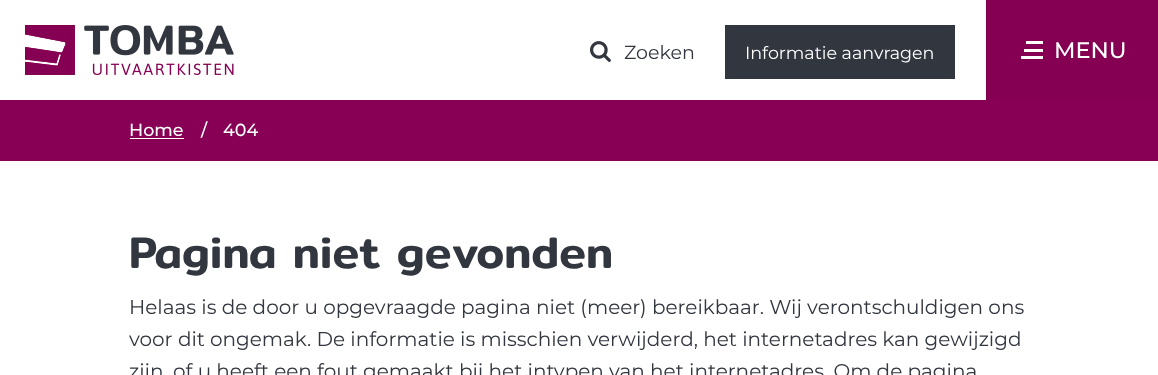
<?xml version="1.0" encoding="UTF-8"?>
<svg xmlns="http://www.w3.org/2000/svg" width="1158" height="375">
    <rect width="100%" height="100%" fill="#FFFFFF"/>
    <image x="25" y="25" width="209" height="50" href="img_01.png"/>
    <image x="590" y="41" width="21" height="21" href="img_02.png"/>
    <text x="624" y="59" font-family="Montserrat" font-size="19" fill="#32363F">Zoeken</text>
    <rect x="725" y="25" width="230" height="54" fill="#32363F"/>
    <text x="745" y="59" font-family="Montserrat" font-size="17.5" fill="#FFFFFF">Informatie aanvragen</text>
    <rect x="986" y="0" width="172" height="100" fill="#850052"/>
    <rect x="1026" y="41" width="17" height="3" fill="#FFFFFF"/>
    <rect x="1024" y="49" width="19" height="3" fill="#FFFFFF"/>
    <rect x="1021" y="56" width="22" height="3" fill="#FFFFFF"/>
    <text x="1054" y="58" font-family="Montserrat" font-size="22.5" font-weight="500" fill="#FFFFFF">MENU</text>
    <rect x="0" y="100" width="1158" height="61" fill="#870055"/>
    <text x="129" y="136" font-family="Montserrat" font-size="17.5" font-weight="500" fill="#FFFFFF">Home</text>
    <rect x="130" y="138" width="54" height="1" fill="#FFFFFF"/>
    <text x="201" y="136" font-family="Montserrat" font-size="17.5" font-weight="500" fill="#FFFFFF">/</text>
    <text x="223" y="136" font-family="Montserrat" font-size="17.5" font-weight="500" fill="#FFFFFF">404</text>
    <text x="129" y="268" font-family="Mitr" font-size="45" font-weight="500" fill="#32363F">Pagina niet gevonden</text>
    <text font-family="Montserrat" font-size="20" fill="#32363F">
        <tspan x="129" y="314">Helaas is de door u opgevraagde pagina niet (meer) bereikbaar. Wij verontschuldigen ons</tspan>
        <tspan x="129" y="346">voor dit ongemak. De informatie is misschien verwijderd, het internetadres kan gewijzigd</tspan>
        <tspan x="129" y="378">zijn, of u heeft een fout gemaakt bij het intypen van het internetadres. Om de pagina</tspan>
    </text>
</svg>
